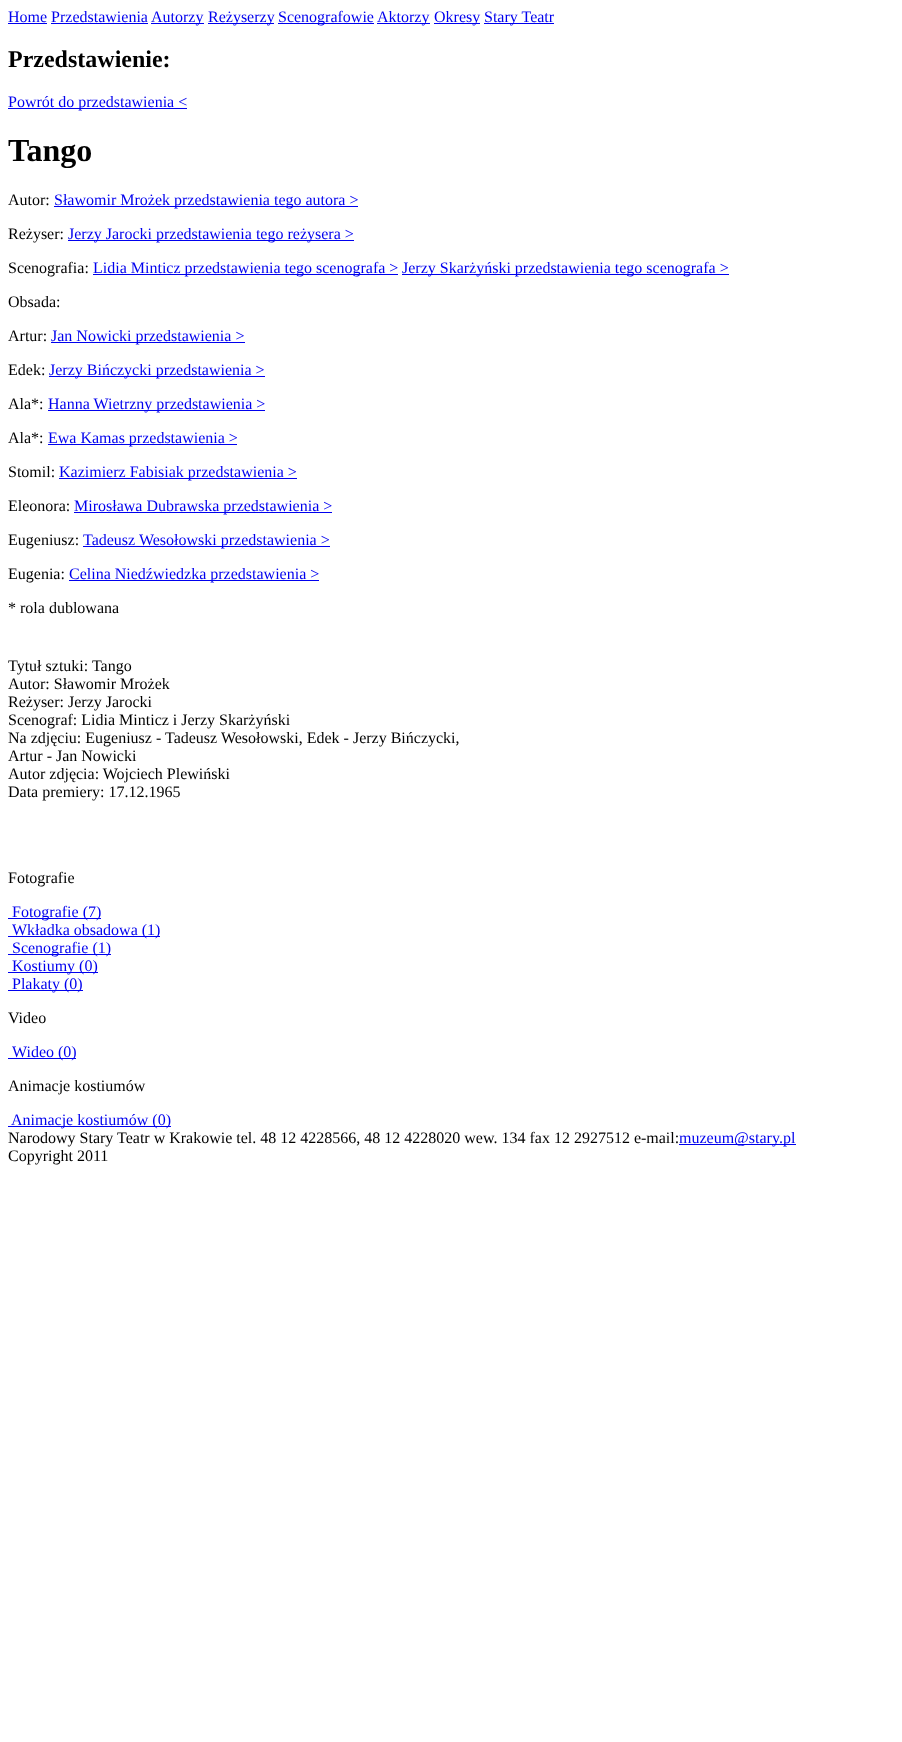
<?xml version="1.0" encoding="UTF-8"?>
<svg xmlns="http://www.w3.org/2000/svg" width="902" height="1742">
    <rect width="100%" height="100%" fill="#FFFFFF"/>
    <text x="8" y="22" font-family="Liberation Serif" font-size="16" fill="#0000EE">Home Przedstawienia</text>
    <rect x="8" y="23" width="39" height="1" fill="#0000EE"/>
    <rect x="151" y="23" width="53" height="1" fill="#0000EE"/>
    <text x="151" y="22" font-family="Liberation Serif" font-size="16" fill="#0000EE">Autorzy</text>
    <rect x="208" y="23" width="66" height="1" fill="#0000EE"/>
    <text x="208" y="22" font-family="Liberation Serif" font-size="16" fill="#0000EE">Reżyserzy</text>
    <rect x="278" y="23" width="96" height="1" fill="#0000EE"/>
    <text x="278" y="22" font-family="Liberation Serif" font-size="16" fill="#0000EE">Scenografowie</text>
    <rect x="377" y="23" width="53" height="1" fill="#0000EE"/>
    <text x="377" y="22" font-family="Liberation Serif" font-size="16" fill="#0000EE">Aktorzy</text>
    <rect x="434" y="23" width="46" height="1" fill="#0000EE"/>
    <text x="434" y="22" font-family="Liberation Serif" font-size="16" fill="#0000EE">Okresy</text>
    <rect x="484" y="23" width="70" height="1" fill="#0000EE"/>
    <text x="484" y="22" font-family="Liberation Serif" font-size="16" fill="#0000EE">Stary Teatr</text>
    <rect x="51" y="23" width="97" height="1" fill="#0000EE"/>
    <text x="8" y="67" font-family="Liberation Serif" font-size="24" font-weight="700" fill="#000000">Przedstawienie:</text>
    <rect x="8" y="108" width="179" height="1" fill="#0000EE"/>
    <text x="8" y="107" font-family="Liberation Serif" font-size="16" fill="#0000EE">Powrót do przedstawienia &lt;</text>
    <text x="8" y="161" font-family="Liberation Serif" font-size="32" font-weight="700" fill="#000000">Tango</text>
    <text x="8" y="205" font-family="Liberation Serif" font-size="16" fill="#000000">Autor:</text>
    <rect x="54" y="206" width="304" height="1" fill="#0000EE"/>
    <text x="54" y="205" font-family="Liberation Serif" font-size="16" fill="#0000EE">Sławomir Mrożek przedstawienia tego autora &gt;</text>
    <text x="8" y="239" font-family="Liberation Serif" font-size="16" fill="#000000">Reżyser:</text>
    <rect x="68" y="240" width="286" height="1" fill="#0000EE"/>
    <text x="68" y="239" font-family="Liberation Serif" font-size="16" fill="#0000EE">Jerzy Jarocki przedstawienia tego reżysera &gt;</text>
    <text x="8" y="273" font-family="Liberation Serif" font-size="16" fill="#000000">Scenografia:</text>
    <rect x="93" y="274" width="305" height="1" fill="#0000EE"/>
    <text x="93" y="273" font-family="Liberation Serif" font-size="16" fill="#0000EE">Lidia Minticz przedstawienia tego scenografa &gt;</text>
    <rect x="402" y="274" width="327" height="1" fill="#0000EE"/>
    <text x="402" y="273" font-family="Liberation Serif" font-size="16" fill="#0000EE">Jerzy Skarżyński przedstawienia tego scenografa &gt;</text>
    <text x="8" y="307" font-family="Liberation Serif" font-size="16" fill="#000000">Obsada:</text>
    <text x="8" y="341" font-family="Liberation Serif" font-size="16" fill="#000000">Artur:</text>
    <rect x="51" y="342" width="194" height="1" fill="#0000EE"/>
    <text x="51" y="341" font-family="Liberation Serif" font-size="16" fill="#0000EE">Jan Nowicki przedstawienia &gt;</text>
    <text x="8" y="375" font-family="Liberation Serif" font-size="16" fill="#000000">Edek:</text>
    <rect x="49" y="376" width="216" height="1" fill="#0000EE"/>
    <text x="49" y="375" font-family="Liberation Serif" font-size="16" fill="#0000EE">Jerzy Bińczycki przedstawienia &gt;</text>
    <text x="8" y="409" font-family="Liberation Serif" font-size="16" fill="#000000">Ala*:</text>
    <rect x="48" y="410" width="217" height="1" fill="#0000EE"/>
    <text x="48" y="409" font-family="Liberation Serif" font-size="16" fill="#0000EE">Hanna Wietrzny przedstawienia &gt;</text>
    <text x="8" y="443" font-family="Liberation Serif" font-size="16" fill="#000000">Ala*:</text>
    <rect x="48" y="444" width="189" height="1" fill="#0000EE"/>
    <text x="48" y="443" font-family="Liberation Serif" font-size="16" fill="#0000EE">Ewa Kamas przedstawienia &gt;</text>
    <text x="8" y="477" font-family="Liberation Serif" font-size="16" fill="#000000">Stomil:</text>
    <rect x="59" y="478" width="238" height="1" fill="#0000EE"/>
    <text x="59" y="477" font-family="Liberation Serif" font-size="16" fill="#0000EE">Kazimierz Fabisiak przedstawienia &gt;</text>
    <text x="8" y="511" font-family="Liberation Serif" font-size="16" fill="#000000">Eleonora:</text>
    <rect x="74" y="512" width="258" height="1" fill="#0000EE"/>
    <text x="74" y="511" font-family="Liberation Serif" font-size="16" fill="#0000EE">Mirosława Dubrawska przedstawienia &gt;</text>
    <text x="8" y="545" font-family="Liberation Serif" font-size="16" fill="#000000">Eugeniusz:</text>
    <rect x="83" y="546" width="247" height="1" fill="#0000EE"/>
    <text x="83" y="545" font-family="Liberation Serif" font-size="16" fill="#0000EE">Tadeusz Wesołowski przedstawienia &gt;</text>
    <text x="8" y="579" font-family="Liberation Serif" font-size="16" fill="#000000">Eugenia:</text>
    <rect x="69" y="580" width="250" height="1" fill="#0000EE"/>
    <text x="69" y="579" font-family="Liberation Serif" font-size="16" fill="#0000EE">Celina Niedźwiedzka przedstawienia &gt;</text>
    <text x="8" y="613" font-family="Liberation Serif" font-size="16" fill="#000000">* rola dublowana</text>
    <text font-family="Liberation Serif" font-size="16" fill="#000000">
        <tspan x="8" y="671">Tytuł sztuki: Tango</tspan>
        <tspan x="8" y="689">Autor: Sławomir Mrożek</tspan>
        <tspan x="8" y="707">Reżyser: Jerzy Jarocki</tspan>
        <tspan x="8" y="725">Scenograf: Lidia Minticz i Jerzy Skarżyński</tspan>
        <tspan x="8" y="743">Na zdjęciu: Eugeniusz - Tadeusz Wesołowski, Edek - Jerzy Bińczycki,</tspan>
        <tspan x="8" y="761">Artur - Jan Nowicki</tspan>
        <tspan x="8" y="779">Autor zdjęcia: Wojciech Plewiński</tspan>
        <tspan x="8" y="797">Data premiery: 17.12.1965</tspan>
    </text>
    <text x="8" y="883" font-family="Liberation Serif" font-size="16" fill="#000000">Fotografie</text>
    <rect x="8" y="918" width="93" height="1" fill="#0000EE"/>
    <text x="12" y="917" font-family="Liberation Serif" font-size="16" fill="#0000EE">Fotografie (7)</text>
    <rect x="8" y="936" width="152" height="1" fill="#0000EE"/>
    <text x="12" y="935" font-family="Liberation Serif" font-size="16" fill="#0000EE">Wkładka obsadowa (1)</text>
    <rect x="8" y="954" width="103" height="1" fill="#0000EE"/>
    <text x="12" y="953" font-family="Liberation Serif" font-size="16" fill="#0000EE">Scenografie (1)</text>
    <rect x="8" y="972" width="90" height="1" fill="#0000EE"/>
    <text x="12" y="971" font-family="Liberation Serif" font-size="16" fill="#0000EE">Kostiumy (0)</text>
    <rect x="8" y="990" width="75" height="1" fill="#0000EE"/>
    <text x="12" y="989" font-family="Liberation Serif" font-size="16" fill="#0000EE">Plakaty (0)</text>
    <text x="8" y="1023" font-family="Liberation Serif" font-size="16" fill="#000000">Video</text>
    <rect x="8" y="1058" width="68" height="1" fill="#0000EE"/>
    <text x="12" y="1057" font-family="Liberation Serif" font-size="16" fill="#0000EE">Wideo (0)</text>
    <text x="8" y="1091" font-family="Liberation Serif" font-size="16" fill="#000000">Animacje kostiumów</text>
    <rect x="8" y="1126" width="163" height="1" fill="#0000EE"/>
    <text x="11" y="1125" font-family="Liberation Serif" font-size="16" fill="#0000EE">Animacje kostiumów (0)</text>
    <text x="8" y="1143" font-family="Liberation Serif" font-size="16" fill="#000000">Narodowy Stary Teatr w Krakowie tel. 48 12 4228566, 48 12 4228020 wew. 134 fax 12 2927512 e-mail:</text>
    <rect x="679" y="1144" width="117" height="1" fill="#0000EE"/>
    <text x="679" y="1143" font-family="Liberation Serif" font-size="16" fill="#0000EE">muzeum@stary.pl</text>
    <text x="8" y="1161" font-family="Liberation Serif" font-size="16" fill="#000000">Copyright 2011</text>
</svg>
